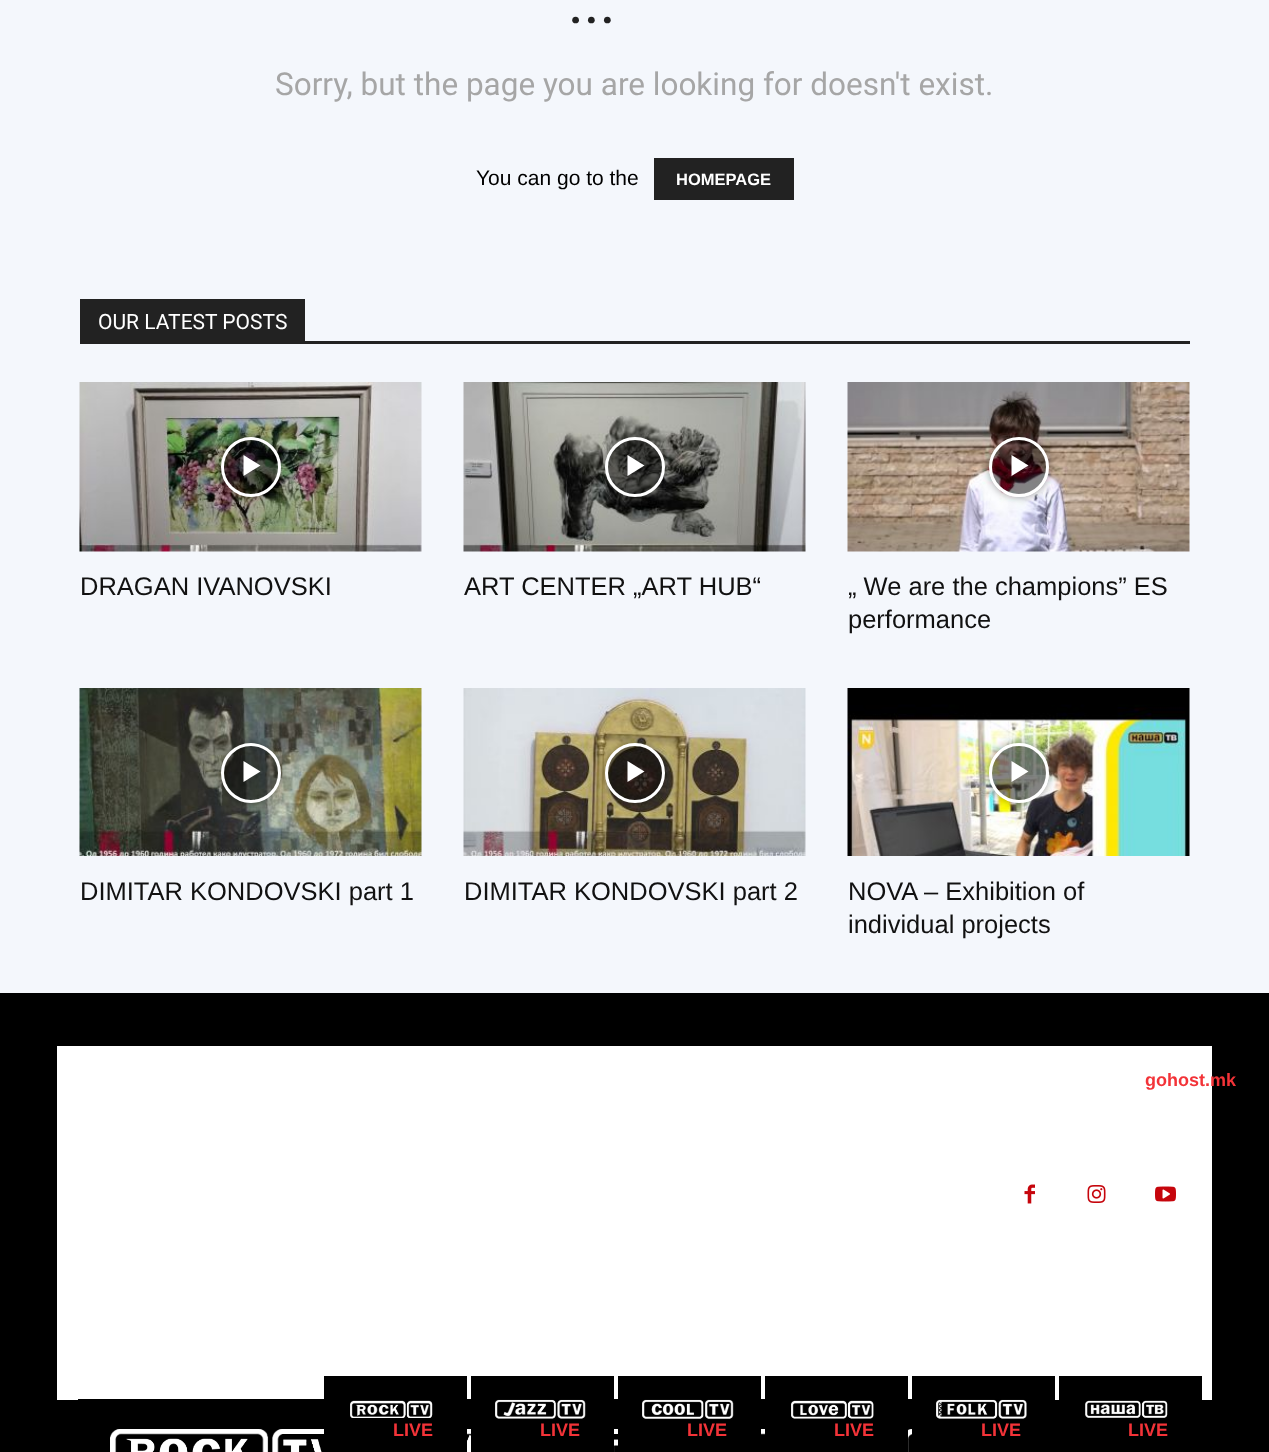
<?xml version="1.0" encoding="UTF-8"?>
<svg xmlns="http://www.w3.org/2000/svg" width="1269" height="1452">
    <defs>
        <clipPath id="clip1"><path d="M 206 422 H 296 V 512 H 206 Z M 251 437 C 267.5 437 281 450.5 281 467 C 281 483.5 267.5 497 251 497 C 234.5 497 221 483.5 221 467 C 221 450.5 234.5 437 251 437 Z" clip-rule="evenodd"/></clipPath>
        <filter id="blur1" x="-50%" y="-200%" width="200%" height="500%"><feGaussianBlur stdDeviation="4.5"/></filter>
        <clipPath id="clip2"><path d="M 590 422 H 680 V 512 H 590 Z M 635 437 C 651.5 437 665 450.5 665 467 C 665 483.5 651.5 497 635 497 C 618.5 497 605 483.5 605 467 C 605 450.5 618.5 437 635 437 Z" clip-rule="evenodd"/></clipPath>
        <clipPath id="clip3"><path d="M 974 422 H 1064 V 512 H 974 Z M 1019 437 C 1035.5 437 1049 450.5 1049 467 C 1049 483.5 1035.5 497 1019 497 C 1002.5 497 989 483.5 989 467 C 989 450.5 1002.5 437 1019 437 Z" clip-rule="evenodd"/></clipPath>
        <clipPath id="clip4"><path d="M 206 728 H 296 V 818 H 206 Z M 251 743 C 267.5 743 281 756.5 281 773 C 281 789.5 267.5 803 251 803 C 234.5 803 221 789.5 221 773 C 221 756.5 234.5 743 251 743 Z" clip-rule="evenodd"/></clipPath>
        <clipPath id="clip5"><path d="M 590 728 H 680 V 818 H 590 Z M 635 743 C 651.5 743 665 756.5 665 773 C 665 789.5 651.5 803 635 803 C 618.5 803 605 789.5 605 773 C 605 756.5 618.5 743 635 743 Z" clip-rule="evenodd"/></clipPath>
        <clipPath id="clip6"><path d="M 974 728 H 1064 V 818 H 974 Z M 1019 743 C 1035.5 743 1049 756.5 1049 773 C 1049 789.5 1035.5 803 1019 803 C 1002.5 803 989 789.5 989 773 C 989 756.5 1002.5 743 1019 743 Z" clip-rule="evenodd"/></clipPath>
    </defs>
    <rect width="100%" height="100%" fill="#F4F7FC"/>
    <text x="568" y="23" font-family="Roboto" font-size="60" fill="#222222">...</text>
    <text x="275" y="95" font-family="Roboto" font-size="31.5" fill="#A6A6A6">Sorry, but the page you are looking for doesn't exist.</text>
    <text x="476" y="185" font-family="Liberation Sans" font-size="21" fill="#000000">You can go to the</text>
    <rect x="654" y="158" width="140" height="42" fill="#222222"/>
    <text x="676" y="185" font-family="Liberation Sans" font-size="16.5" font-weight="700" fill="#FFFFFF">HOMEPAGE</text>
    <rect x="80" y="341" width="1110" height="3" fill="#222222"/>
    <rect x="80" y="299" width="225" height="42" fill="#222222"/>
    <text x="98" y="329" font-family="Roboto" font-size="21" fill="#FFFFFF">OUR LATEST POSTS</text>
    <image x="79" y="382" width="343" height="170" href="img_01.png"/>
    <g clip-path="url(#clip1)">
        <rect x="221" y="437" width="60" height="60" rx="30" fill="#000000" fill-opacity="0.4" filter="url(#blur1)"/>
    </g>
    <circle cx="251" cy="467" r="28.5" fill="#000000" fill-opacity="0.48" stroke="#FFFFFF" stroke-width="3"/>
    <path d="M 243.5 455 V 476 L 260.5 465.5 Z" fill="#FFFFFF"/>
    <text x="80" y="595" font-family="Liberation Sans" font-size="25.5" fill="#111111">DRAGAN IVANOVSKI</text>
    <image x="463" y="382" width="343" height="170" href="img_02.png"/>
    <g clip-path="url(#clip2)">
        <rect x="605" y="437" width="60" height="60" rx="30" fill="#000000" fill-opacity="0.4" filter="url(#blur1)"/>
    </g>
    <circle cx="635" cy="467" r="28.5" fill="#000000" fill-opacity="0.48" stroke="#FFFFFF" stroke-width="3"/>
    <path d="M 627.5 455 V 476 L 644.5 465.5 Z" fill="#FFFFFF"/>
    <text x="464" y="595" font-family="Liberation Sans" font-size="25.5" fill="#111111">ART CENTER „ART HUB“</text>
    <image x="847" y="382" width="343" height="170" href="img_03.png"/>
    <g clip-path="url(#clip3)">
        <rect x="989" y="437" width="60" height="60" rx="30" fill="#000000" fill-opacity="0.4" filter="url(#blur1)"/>
    </g>
    <circle cx="1019" cy="467" r="28.5" fill="#000000" fill-opacity="0.48" stroke="#FFFFFF" stroke-width="3"/>
    <path d="M 1011.5 455 V 476 L 1028.5 465.5 Z" fill="#FFFFFF"/>
    <text font-family="Liberation Sans" font-size="25.5" fill="#111111">
        <tspan x="848" y="595">„ We are the champions” ES</tspan>
        <tspan x="848" y="628">performance</tspan>
    </text>
    <image x="79" y="688" width="343" height="168" href="img_04.png"/>
    <g clip-path="url(#clip4)">
        <rect x="221" y="743" width="60" height="60" rx="30" fill="#000000" fill-opacity="0.4" filter="url(#blur1)"/>
    </g>
    <circle cx="251" cy="773" r="28.5" fill="#000000" fill-opacity="0.48" stroke="#FFFFFF" stroke-width="3"/>
    <path d="M 243.5 761 V 782 L 260.5 771.5 Z" fill="#FFFFFF"/>
    <text x="80" y="900" font-family="Liberation Sans" font-size="25.5" fill="#111111">DIMITAR KONDOVSKI part 1</text>
    <image x="463" y="688" width="343" height="168" href="img_05.png"/>
    <g clip-path="url(#clip5)">
        <rect x="605" y="743" width="60" height="60" rx="30" fill="#000000" fill-opacity="0.4" filter="url(#blur1)"/>
    </g>
    <circle cx="635" cy="773" r="28.5" fill="#000000" fill-opacity="0.48" stroke="#FFFFFF" stroke-width="3"/>
    <path d="M 627.5 761 V 782 L 644.5 771.5 Z" fill="#FFFFFF"/>
    <text x="464" y="900" font-family="Liberation Sans" font-size="25.5" fill="#111111">DIMITAR KONDOVSKI part 2</text>
    <image x="847" y="688" width="343" height="168" href="img_06.png"/>
    <g clip-path="url(#clip6)">
        <rect x="989" y="743" width="60" height="60" rx="30" fill="#000000" fill-opacity="0.4" filter="url(#blur1)"/>
    </g>
    <circle cx="1019" cy="773" r="28.5" fill="#000000" fill-opacity="0.48" stroke="#FFFFFF" stroke-width="3"/>
    <path d="M 1011.5 761 V 782 L 1028.5 771.5 Z" fill="#FFFFFF"/>
    <text font-family="Liberation Sans" font-size="25.5" fill="#111111">
        <tspan x="848" y="900">NOVA – Exhibition of</tspan>
        <tspan x="848" y="933">individual projects</tspan>
    </text>
    <rect x="0" y="993" width="1269" height="459" fill="#000000"/>
    <rect x="57" y="1046" width="1155" height="354" fill="#FFFFFF"/>
    <image x="1024" y="1184" width="11" height="20" href="img_07.png"/>
    <image x="1087" y="1185" width="19" height="18" href="img_08.png"/>
    <image x="1155" y="1186" width="21" height="16" href="img_09.png"/>
    <image x="78" y="1399" width="246" height="53" href="img_10.png"/>
    <image x="467" y="1399" width="151" height="53" href="img_11.png"/>
    <image x="761" y="1399" width="151" height="53" href="img_12.png"/>
    <text x="1145" y="1086" font-family="Liberation Sans" font-size="18" font-weight="700" fill="#F33338">gohost.mk</text>
    <rect x="324" y="1376" width="143" height="24" fill="#000000"/>
    <image x="350" y="1400" width="83" height="18" href="img_13.png"/>
    <text x="393" y="1436" font-family="Liberation Sans" font-size="18" font-weight="700" fill="#F33338">LIVE</text>
    <rect x="471" y="1376" width="143" height="76" fill="#000000"/>
    <image x="495" y="1399" width="91" height="20" href="img_14.png"/>
    <text x="540" y="1436" font-family="Liberation Sans" font-size="18" font-weight="700" fill="#F33338">LIVE</text>
    <rect x="618" y="1376" width="143" height="24" fill="#000000"/>
    <image x="642" y="1399" width="92" height="20" href="img_15.png"/>
    <text x="687" y="1436" font-family="Liberation Sans" font-size="18" font-weight="700" fill="#F33338">LIVE</text>
    <rect x="765" y="1376" width="143" height="76" fill="#000000"/>
    <image x="791" y="1400" width="83" height="19" href="img_16.png"/>
    <text x="834" y="1436" font-family="Liberation Sans" font-size="18" font-weight="700" fill="#F33338">LIVE</text>
    <rect x="912" y="1376" width="143" height="24" fill="#000000"/>
    <image x="936" y="1399" width="91" height="20" href="img_17.png"/>
    <text x="981" y="1436" font-family="Liberation Sans" font-size="18" font-weight="700" fill="#F33338">LIVE</text>
    <rect x="1059" y="1376" width="143" height="24" fill="#000000"/>
    <image x="1085" y="1400" width="83" height="18" href="img_18.png"/>
    <text x="1128" y="1436" font-family="Liberation Sans" font-size="18" font-weight="700" fill="#F33338">LIVE</text>
</svg>
